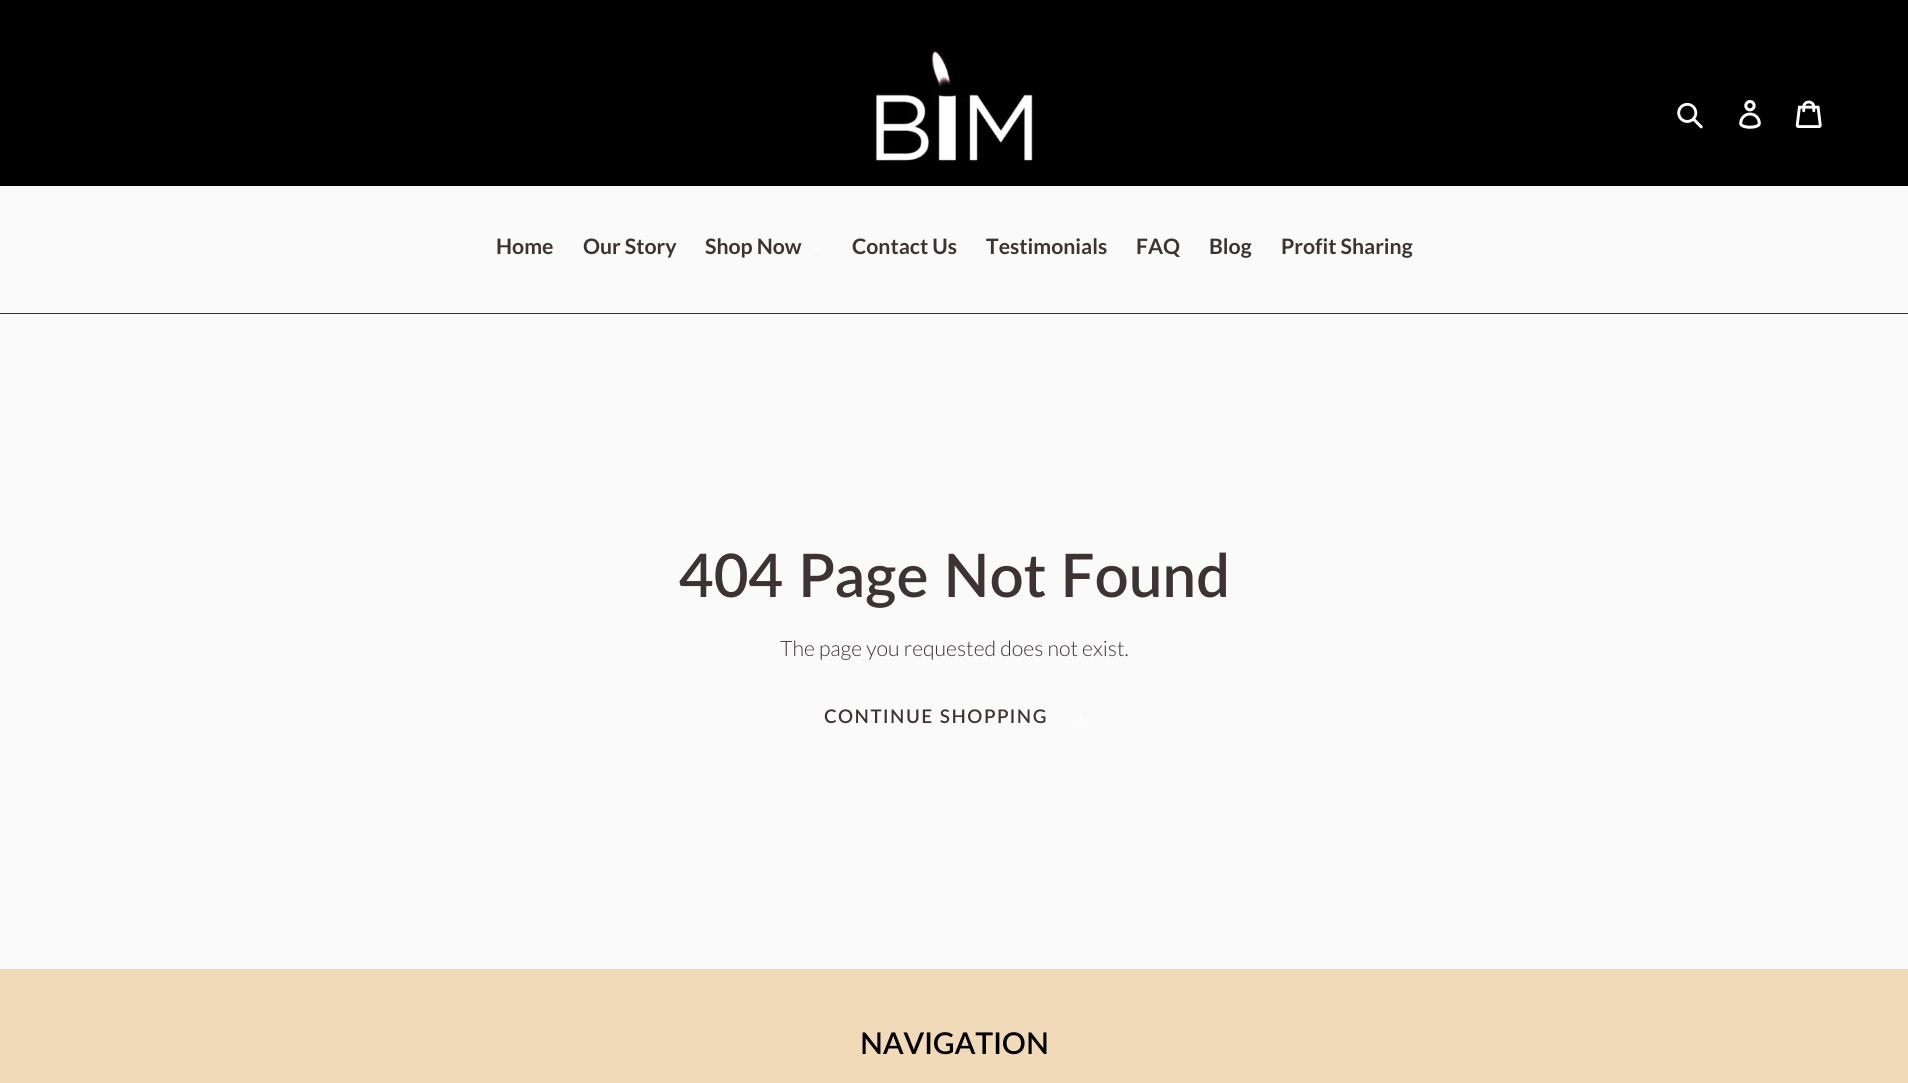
#include <cairo/cairo.h>
#include <math.h>
#include <stddef.h>


static void draw_spaced(cairo_t *cr, double x, double y, const char *s, double letter, double word) {
  cairo_move_to(cr, x, y);
  while (*s) {
    char ch[5] = {0};
    int n = 0;
    do ch[n++] = *s++; while ((*s & 0xC0) == 0x80);
    cairo_show_text(cr, ch);
    cairo_rel_move_to(cr, letter + word * (*ch == ' '), 0);
  }
}

static void draw_image(cairo_t *cr, const char *path, double x, double y, double w, double h) {
  cairo_surface_t *image = cairo_image_surface_create_from_png(path);
  cairo_save(cr);
  cairo_set_source_surface(cr, image, x, y);
  cairo_rectangle(cr, x, y, w, h);
  cairo_fill(cr);
  cairo_restore(cr);
  cairo_surface_destroy(image);
}

static void draw(cairo_t *cr) {
  cairo_set_source_rgb(cr, 250 / 255.0, 250 / 255.0, 250 / 255.0);
  cairo_paint(cr);
  cairo_set_source_rgb(cr, 0, 0, 0);
  cairo_rectangle(cr, 0, 0, 1908, 186);
  cairo_fill(cr);
  draw_image(cr, "images/1.png", 874, 47, 160, 115);
  draw_image(cr, "images/2.png", 1677, 102, 26, 27);
  draw_image(cr, "images/3.png", 1739, 100, 22, 29);
  draw_image(cr, "images/4.png", 1795, 100, 27, 28);
  cairo_set_source_rgb(cr, 61 / 255.0, 51 / 255.0, 51 / 255.0);
  cairo_rectangle(cr, 0, 313, 1908, 1);
  cairo_fill(cr);
  draw_image(cr, "images/5.png", 813, 246, 10, 6);
  draw_image(cr, "images/6.png", 1079, 715, 4, 7);
  cairo_set_source_rgb(cr, 241 / 255.0, 218 / 255.0, 184 / 255.0);
  cairo_rectangle(cr, 0, 969, 1908, 114);
  cairo_fill(cr);
  cairo_select_font_face(cr, "Lato", CAIRO_FONT_SLANT_NORMAL, CAIRO_FONT_WEIGHT_BOLD);
  cairo_set_font_size(cr, 21.25);
  cairo_set_source_rgb(cr, 61 / 255.0, 51 / 255.0, 51 / 255.0);
  cairo_move_to(cr, 496, 254);
  cairo_show_text(cr, "Home");
  cairo_move_to(cr, 583, 254);
  cairo_show_text(cr, "Our Story");
  cairo_move_to(cr, 705, 254);
  cairo_show_text(cr, "Shop Now");
  cairo_move_to(cr, 852, 254);
  cairo_show_text(cr, "Contact Us");
  cairo_move_to(cr, 986, 254);
  cairo_show_text(cr, "Testimonials");
  cairo_move_to(cr, 1136, 254);
  cairo_show_text(cr, "FAQ");
  cairo_move_to(cr, 1209, 254);
  cairo_show_text(cr, "Blog");
  cairo_move_to(cr, 1281, 254);
  cairo_show_text(cr, "Profit Sharing");
  cairo_select_font_face(cr, "Lato SemiBold", CAIRO_FONT_SLANT_NORMAL, CAIRO_FONT_WEIGHT_NORMAL);
  cairo_set_font_size(cr, 60);
  cairo_move_to(cr, 679, 597);
  cairo_show_text(cr, "404 Page Not Found");
  cairo_select_font_face(cr, "Lato Light", CAIRO_FONT_SLANT_NORMAL, CAIRO_FONT_WEIGHT_NORMAL);
  cairo_set_font_size(cr, 21.25);
  cairo_move_to(cr, 780, 656);
  cairo_show_text(cr, "The page you requested does not exist.");
  cairo_select_font_face(cr, "Lato SemiBold", CAIRO_FONT_SLANT_NORMAL, CAIRO_FONT_WEIGHT_NORMAL);
  cairo_set_font_size(cr, 18.75);
  draw_spaced(cr, 824, 723, "CONTINUE SHOPPING", 1.5, 0);
  cairo_set_font_size(cr, 30);
  cairo_set_source_rgb(cr, 0, 0, 0);
  cairo_move_to(cr, 860, 1054);
  cairo_show_text(cr, "NAVIGATION");
}

int main(void) {
  cairo_surface_t *surface = cairo_image_surface_create(CAIRO_FORMAT_RGB24, 1908, 1083);
  cairo_t *cr = cairo_create(surface);
  cairo_font_options_t *options = cairo_font_options_create();
  cairo_font_options_set_hint_metrics(options, CAIRO_HINT_METRICS_OFF);
  cairo_font_options_set_hint_style(options, CAIRO_HINT_STYLE_NONE);
  cairo_set_font_options(cr, options);
  cairo_set_miter_limit(cr, 4);
  draw(cr);
  cairo_surface_write_to_png(surface, "out.png");
  cairo_font_options_destroy(options);
  cairo_destroy(cr);
  cairo_surface_destroy(surface);
  return 0;
}
